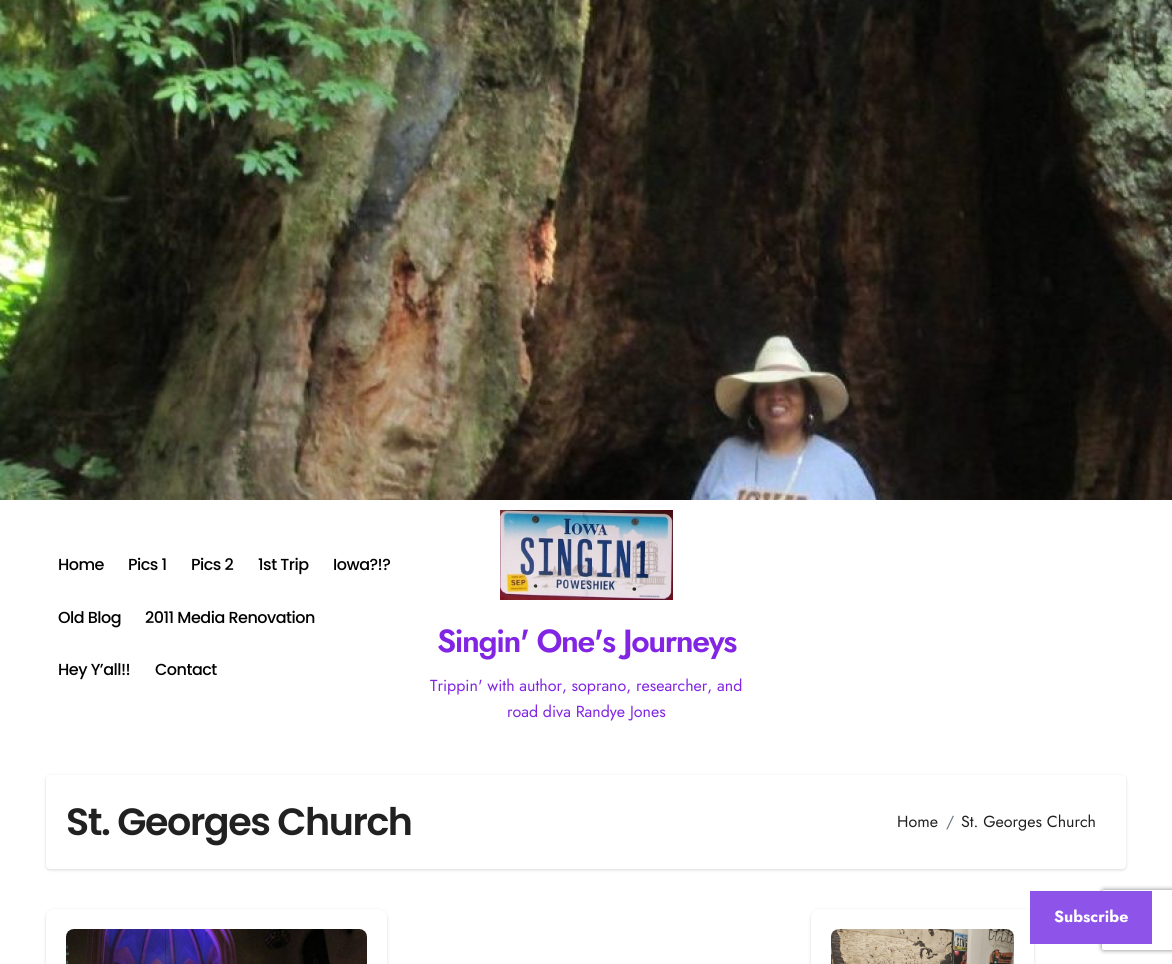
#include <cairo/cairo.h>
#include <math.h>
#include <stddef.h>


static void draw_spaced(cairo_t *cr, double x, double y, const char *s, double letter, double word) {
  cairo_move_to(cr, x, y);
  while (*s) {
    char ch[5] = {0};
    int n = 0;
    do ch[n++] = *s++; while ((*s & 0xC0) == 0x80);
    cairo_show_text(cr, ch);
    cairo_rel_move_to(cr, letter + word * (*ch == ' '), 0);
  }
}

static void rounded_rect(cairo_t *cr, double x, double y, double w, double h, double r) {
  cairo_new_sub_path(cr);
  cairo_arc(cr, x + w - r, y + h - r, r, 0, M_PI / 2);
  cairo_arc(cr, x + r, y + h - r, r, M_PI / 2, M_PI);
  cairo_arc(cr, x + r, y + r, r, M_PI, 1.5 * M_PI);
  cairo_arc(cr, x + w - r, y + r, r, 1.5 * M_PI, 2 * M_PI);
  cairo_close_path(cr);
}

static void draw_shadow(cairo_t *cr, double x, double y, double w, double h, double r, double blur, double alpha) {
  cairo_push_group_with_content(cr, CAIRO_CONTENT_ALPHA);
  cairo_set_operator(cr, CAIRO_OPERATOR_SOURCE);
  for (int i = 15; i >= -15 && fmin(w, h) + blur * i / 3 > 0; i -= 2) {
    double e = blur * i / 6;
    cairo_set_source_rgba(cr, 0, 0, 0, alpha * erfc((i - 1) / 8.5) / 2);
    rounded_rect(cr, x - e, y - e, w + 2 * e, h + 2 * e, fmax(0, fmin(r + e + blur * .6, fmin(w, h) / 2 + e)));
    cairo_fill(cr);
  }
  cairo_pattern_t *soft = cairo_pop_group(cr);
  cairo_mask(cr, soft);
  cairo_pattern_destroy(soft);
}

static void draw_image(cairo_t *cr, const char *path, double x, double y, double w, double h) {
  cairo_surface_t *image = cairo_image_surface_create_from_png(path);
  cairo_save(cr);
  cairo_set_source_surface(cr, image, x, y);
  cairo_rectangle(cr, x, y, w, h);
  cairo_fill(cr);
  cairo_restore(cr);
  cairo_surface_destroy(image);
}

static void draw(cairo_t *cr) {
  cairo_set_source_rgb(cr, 1, 1, 1);
  cairo_paint(cr);
  draw_image(cr, "images/1.png", 0, 0, 1172, 500);
  draw_image(cr, "images/2.png", 500, 510, 173, 90);
  cairo_set_source_rgb(cr, 0, 0, 0);
  draw_shadow(cr, 46, 776, 1080, 94, 4, 1.5, 0.15);
  cairo_set_source_rgb(cr, 1, 1, 1);
  rounded_rect(cr, 46, 775, 1080, 94, 4);
  cairo_fill(cr);
  cairo_set_source_rgb(cr, 0, 0, 0);
  draw_shadow(cr, 46, 910, 341, 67, 8, 1.5, 0.15);
  cairo_set_source_rgb(cr, 1, 1, 1);
  rounded_rect(cr, 46, 909, 341, 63, 8);
  cairo_fill(cr);
  draw_image(cr, "images/3.png", 66, 929, 301, 35);
  cairo_set_source_rgb(cr, 0, 0, 0);
  draw_shadow(cr, 811, 910, 223, 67, 8, 1.5, 0.15);
  cairo_set_source_rgb(cr, 1, 1, 1);
  rounded_rect(cr, 811, 909, 223, 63, 8);
  cairo_fill(cr);
  draw_image(cr, "images/4.png", 831, 929, 183, 35);
  cairo_save(cr);
  cairo_set_fill_rule(cr, CAIRO_FILL_RULE_EVEN_ODD);
  cairo_new_path(cr);
  cairo_move_to(cr, 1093, 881);
  cairo_line_to(cr, 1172, 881);
  cairo_line_to(cr, 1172, 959);
  cairo_line_to(cr, 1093, 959);
  cairo_close_path(cr);
  cairo_move_to(cr, 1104, 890);
  cairo_line_to(cr, 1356, 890);
  cairo_curve_to(cr, 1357, 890, 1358, 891, 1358, 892);
  cairo_line_to(cr, 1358, 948);
  cairo_curve_to(cr, 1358, 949, 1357, 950, 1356, 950);
  cairo_line_to(cr, 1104, 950);
  cairo_curve_to(cr, 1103, 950, 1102, 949, 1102, 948);
  cairo_line_to(cr, 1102, 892);
  cairo_curve_to(cr, 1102, 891, 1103, 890, 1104, 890);
  cairo_close_path(cr);
  cairo_clip(cr);
  cairo_set_source_rgb(cr, 128 / 255.0, 128 / 255.0, 128 / 255.0);
  draw_shadow(cr, 1102, 890, 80, 60, 2, 2.5, 1);
  cairo_restore(cr);
  cairo_set_source_rgb(cr, 142 / 255.0, 84 / 255.0, 233 / 255.0);
  cairo_rectangle(cr, 1030, 891, 122, 53);
  cairo_fill(cr);
  cairo_select_font_face(cr, "Poppins Medium", CAIRO_FONT_SLANT_NORMAL, CAIRO_FONT_WEIGHT_NORMAL);
  cairo_set_font_size(cr, 16);
  cairo_set_source_rgb(cr, 0, 0, 0);
  draw_spaced(cr, 58, 570, "Home", -0.5, 0);
  draw_spaced(cr, 128, 570, "Pics 1", -0.5, 0);
  draw_spaced(cr, 191, 570, "Pics 2", -0.5, 0);
  draw_spaced(cr, 258, 570, "1st Trip", -0.5, 0);
  draw_spaced(cr, 333, 570, "Iowa?!?", -0.5, 0);
  draw_spaced(cr, 58, 623, "Old Blog", -0.5, 0);
  draw_spaced(cr, 145, 623, "2011 Media Renovation", -0.5, 0);
  draw_spaced(cr, 58, 675, "Hey Y’all!!", -0.5, 0);
  draw_spaced(cr, 155, 675, "Contact", -0.5, 0);
  cairo_select_font_face(cr, "Jost SemiBold", CAIRO_FONT_SLANT_NORMAL, CAIRO_FONT_WEIGHT_NORMAL);
  cairo_set_font_size(cr, 32);
  cairo_set_source_rgb(cr, 130 / 255.0, 36 / 255.0, 227 / 255.0);
  draw_spaced(cr, 437, 652, "Singin' One's Journeys", -1.4, 0);
  cairo_select_font_face(cr, "Jost", CAIRO_FONT_SLANT_NORMAL, CAIRO_FONT_WEIGHT_NORMAL);
  cairo_set_font_size(cr, 16);
  cairo_move_to(cr, 430, 691);
  cairo_show_text(cr, "Trippin' with author, soprano, researcher, and");
  cairo_move_to(cr, 507, 717);
  cairo_show_text(cr, "road diva Randye Jones");
  cairo_select_font_face(cr, "Poppins SemiBold", CAIRO_FONT_SLANT_NORMAL, CAIRO_FONT_WEIGHT_NORMAL);
  cairo_set_font_size(cr, 38);
  cairo_set_source_rgb(cr, 33 / 255.0, 33 / 255.0, 33 / 255.0);
  draw_spaced(cr, 66, 835, "St. Georges Church", -1.4, 0);
  cairo_select_font_face(cr, "Jost", CAIRO_FONT_SLANT_NORMAL, CAIRO_FONT_WEIGHT_NORMAL);
  cairo_set_font_size(cr, 16);
  cairo_move_to(cr, 897, 827);
  cairo_show_text(cr, "Home");
  cairo_set_source_rgb(cr, 108 / 255.0, 117 / 255.0, 125 / 255.0);
  cairo_move_to(cr, 946, 827);
  cairo_show_text(cr, "/");
  cairo_set_source_rgb(cr, 33 / 255.0, 33 / 255.0, 33 / 255.0);
  cairo_move_to(cr, 961, 827);
  cairo_show_text(cr, "St. Georges Church");
  cairo_select_font_face(cr, "Jost", CAIRO_FONT_SLANT_NORMAL, CAIRO_FONT_WEIGHT_BOLD);
  cairo_set_source_rgb(cr, 1, 1, 1);
  cairo_move_to(cr, 1054, 922);
  cairo_show_text(cr, "Subscribe");
}

int main(void) {
  cairo_surface_t *surface = cairo_image_surface_create(CAIRO_FORMAT_RGB24, 1172, 964);
  cairo_t *cr = cairo_create(surface);
  cairo_font_options_t *options = cairo_font_options_create();
  cairo_font_options_set_hint_metrics(options, CAIRO_HINT_METRICS_OFF);
  cairo_font_options_set_hint_style(options, CAIRO_HINT_STYLE_NONE);
  cairo_set_font_options(cr, options);
  cairo_set_miter_limit(cr, 4);
  draw(cr);
  cairo_surface_write_to_png(surface, "out.png");
  cairo_font_options_destroy(options);
  cairo_destroy(cr);
  cairo_surface_destroy(surface);
  return 0;
}
